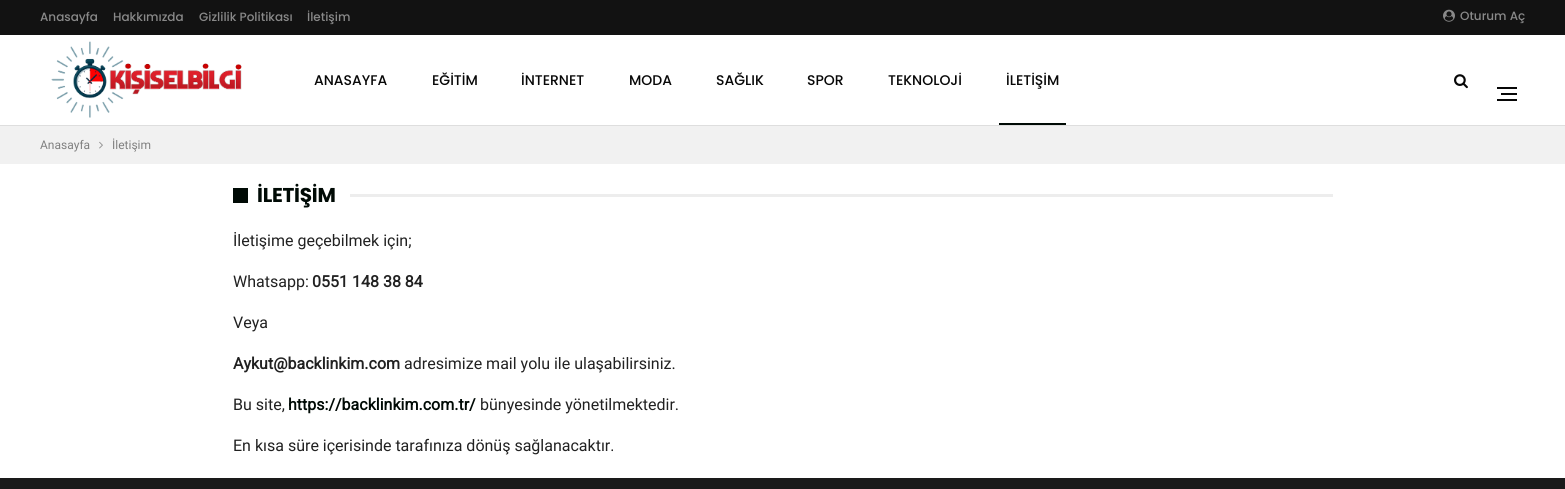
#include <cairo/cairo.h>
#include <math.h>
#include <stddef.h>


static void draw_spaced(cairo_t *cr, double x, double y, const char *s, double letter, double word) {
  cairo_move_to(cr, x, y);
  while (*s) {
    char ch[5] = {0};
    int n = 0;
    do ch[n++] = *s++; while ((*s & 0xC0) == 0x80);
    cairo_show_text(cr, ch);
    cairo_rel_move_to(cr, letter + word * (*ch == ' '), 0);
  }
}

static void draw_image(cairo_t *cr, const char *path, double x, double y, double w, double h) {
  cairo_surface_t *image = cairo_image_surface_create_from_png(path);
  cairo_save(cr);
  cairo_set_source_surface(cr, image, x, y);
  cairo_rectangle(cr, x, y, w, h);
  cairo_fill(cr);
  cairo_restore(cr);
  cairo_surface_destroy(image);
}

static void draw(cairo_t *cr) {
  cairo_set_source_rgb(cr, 1, 1, 1);
  cairo_paint(cr);
  cairo_set_source_rgb(cr, 222 / 255.0, 222 / 255.0, 222 / 255.0);
  cairo_rectangle(cr, 0, 125, 1565, 1);
  cairo_fill(cr);
  cairo_set_source_rgb(cr, 18 / 255.0, 18 / 255.0, 18 / 255.0);
  cairo_rectangle(cr, 0, 0, 1565, 35);
  cairo_fill(cr);
  draw_image(cr, "images/1.png", 1443, 9, 12, 13);
  draw_image(cr, "images/2.png", 51, 41, 191, 77);
  cairo_set_source_rgb(cr, 0, 10 / 255.0, 5 / 255.0);
  cairo_rectangle(cr, 999, 123, 67, 2);
  cairo_fill(cr);
  draw_image(cr, "images/3.png", 1454, 74, 14, 15);
  cairo_set_source_rgb(cr, 7 / 255.0, 7 / 255.0, 7 / 255.0);
  cairo_rectangle(cr, 1501, 93, 16, 2);
  cairo_fill(cr);
  cairo_rectangle(cr, 1497, 87, 20, 2);
  cairo_fill(cr);
  cairo_rectangle(cr, 1497, 99, 20, 2);
  cairo_fill(cr);
  cairo_set_source_rgb(cr, 241 / 255.0, 241 / 255.0, 241 / 255.0);
  cairo_rectangle(cr, 0, 126, 1565, 38);
  cairo_fill(cr);
  draw_image(cr, "images/4.png", 99, 141, 4, 8);
  cairo_set_source_rgb(cr, 0, 10 / 255.0, 5 / 255.0);
  cairo_rectangle(cr, 233, 188, 15, 15);
  cairo_fill(cr);
  cairo_set_source_rgb(cr, 237 / 255.0, 237 / 255.0, 237 / 255.0);
  cairo_rectangle(cr, 350, 194, 983, 3);
  cairo_fill(cr);
  cairo_set_source_rgb(cr, 26 / 255.0, 26 / 255.0, 26 / 255.0);
  cairo_rectangle(cr, 0, 478, 1565, 11);
  cairo_fill(cr);
  cairo_select_font_face(cr, "Poppins Medium", CAIRO_FONT_SLANT_NORMAL, CAIRO_FONT_WEIGHT_NORMAL);
  cairo_set_font_size(cr, 12);
  cairo_set_source_rgb(cr, 137 / 255.0, 137 / 255.0, 137 / 255.0);
  cairo_move_to(cr, 40, 21);
  cairo_show_text(cr, "Anasayfa");
  cairo_move_to(cr, 113, 21);
  cairo_show_text(cr, "Hakkımızda");
  cairo_move_to(cr, 199, 21);
  cairo_show_text(cr, "Gizlilik Politikası");
  cairo_move_to(cr, 307, 21);
  cairo_show_text(cr, "İletişim");
  cairo_move_to(cr, 1460, 20);
  cairo_show_text(cr, "Oturum Aç");
  cairo_set_font_size(cr, 14);
  cairo_set_source_rgb(cr, 7 / 255.0, 7 / 255.0, 7 / 255.0);
  cairo_move_to(cr, 314, 85);
  cairo_show_text(cr, "ANASAYFA");
  cairo_move_to(cr, 432, 85);
  cairo_show_text(cr, "EĞİTİM");
  cairo_move_to(cr, 521, 85);
  cairo_show_text(cr, "İNTERNET");
  cairo_move_to(cr, 629, 85);
  cairo_show_text(cr, "MODA");
  cairo_move_to(cr, 716, 85);
  cairo_show_text(cr, "SAĞLIK");
  cairo_move_to(cr, 807, 85);
  cairo_show_text(cr, "SPOR");
  cairo_move_to(cr, 888, 85);
  cairo_show_text(cr, "TEKNOLOJİ");
  cairo_move_to(cr, 1006, 85);
  cairo_show_text(cr, "İLETİŞİM");
  cairo_select_font_face(cr, "Roboto", CAIRO_FONT_SLANT_NORMAL, CAIRO_FONT_WEIGHT_NORMAL);
  cairo_set_font_size(cr, 12);
  cairo_set_source_rgb(cr, 128 / 255.0, 128 / 255.0, 128 / 255.0);
  cairo_move_to(cr, 40, 149);
  cairo_show_text(cr, "Anasayfa");
  cairo_move_to(cr, 112, 149);
  cairo_show_text(cr, "İletişim");
  cairo_select_font_face(cr, "Poppins", CAIRO_FONT_SLANT_NORMAL, CAIRO_FONT_WEIGHT_BOLD);
  cairo_set_font_size(cr, 20);
  cairo_set_source_rgb(cr, 0, 10 / 255.0, 5 / 255.0);
  draw_spaced(cr, 257, 202, "İLETİŞİM", -0.25, 0);
  cairo_select_font_face(cr, "Roboto", CAIRO_FONT_SLANT_NORMAL, CAIRO_FONT_WEIGHT_NORMAL);
  cairo_set_font_size(cr, 16);
  cairo_set_source_rgb(cr, 33 / 255.0, 33 / 255.0, 33 / 255.0);
  cairo_move_to(cr, 233, 246);
  cairo_show_text(cr, "İletişime geçebilmek için;");
  cairo_move_to(cr, 233, 287);
  cairo_show_text(cr, "Whatsapp:");
  cairo_select_font_face(cr, "Roboto", CAIRO_FONT_SLANT_NORMAL, CAIRO_FONT_WEIGHT_BOLD);
  cairo_move_to(cr, 312, 287);
  cairo_show_text(cr, "0551 148 38 84");
  cairo_select_font_face(cr, "Roboto", CAIRO_FONT_SLANT_NORMAL, CAIRO_FONT_WEIGHT_NORMAL);
  cairo_move_to(cr, 233, 328);
  cairo_show_text(cr, "Veya");
  cairo_select_font_face(cr, "Roboto", CAIRO_FONT_SLANT_NORMAL, CAIRO_FONT_WEIGHT_BOLD);
  cairo_move_to(cr, 233, 369);
  cairo_show_text(cr, "Aykut@backlinkim.com");
  cairo_select_font_face(cr, "Roboto", CAIRO_FONT_SLANT_NORMAL, CAIRO_FONT_WEIGHT_NORMAL);
  cairo_move_to(cr, 404, 369);
  cairo_show_text(cr, "adresimize mail yolu ile ulaşabilirsiniz.");
  cairo_move_to(cr, 233, 410);
  cairo_show_text(cr, "Bu site,");
  cairo_select_font_face(cr, "Roboto", CAIRO_FONT_SLANT_NORMAL, CAIRO_FONT_WEIGHT_BOLD);
  cairo_set_source_rgb(cr, 0, 10 / 255.0, 5 / 255.0);
  cairo_move_to(cr, 288, 410);
  cairo_show_text(cr, "https://backlinkim.com.tr/");
  cairo_select_font_face(cr, "Roboto", CAIRO_FONT_SLANT_NORMAL, CAIRO_FONT_WEIGHT_NORMAL);
  cairo_set_source_rgb(cr, 33 / 255.0, 33 / 255.0, 33 / 255.0);
  cairo_move_to(cr, 480, 410);
  cairo_show_text(cr, "bünyesinde yönetilmektedir.");
  cairo_move_to(cr, 233, 451);
  cairo_show_text(cr, "En kısa süre içerisinde tarafınıza dönüş sağlanacaktır.");
}

int main(void) {
  cairo_surface_t *surface = cairo_image_surface_create(CAIRO_FORMAT_RGB24, 1565, 489);
  cairo_t *cr = cairo_create(surface);
  cairo_font_options_t *options = cairo_font_options_create();
  cairo_font_options_set_hint_metrics(options, CAIRO_HINT_METRICS_OFF);
  cairo_font_options_set_hint_style(options, CAIRO_HINT_STYLE_NONE);
  cairo_set_font_options(cr, options);
  cairo_set_miter_limit(cr, 4);
  draw(cr);
  cairo_surface_write_to_png(surface, "out.png");
  cairo_font_options_destroy(options);
  cairo_destroy(cr);
  cairo_surface_destroy(surface);
  return 0;
}
